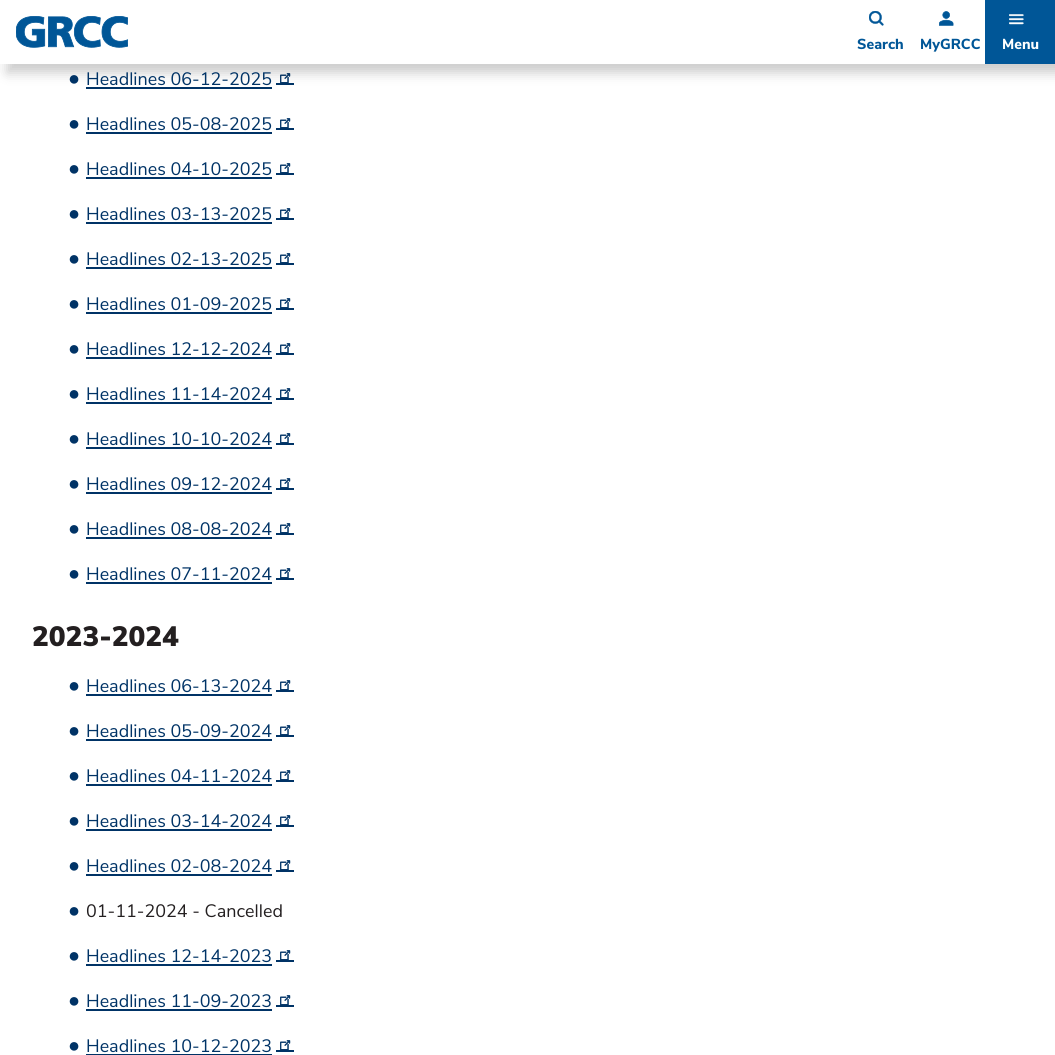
#include <cairo/cairo.h>
#include <math.h>
#include <stddef.h>


static void rounded_rect(cairo_t *cr, double x, double y, double w, double h, double r) {
  cairo_new_sub_path(cr);
  cairo_arc(cr, x + w - r, y + h - r, r, 0, M_PI / 2);
  cairo_arc(cr, x + r, y + h - r, r, M_PI / 2, M_PI);
  cairo_arc(cr, x + r, y + r, r, M_PI, 1.5 * M_PI);
  cairo_arc(cr, x + w - r, y + r, r, 1.5 * M_PI, 2 * M_PI);
  cairo_close_path(cr);
}

static void draw_shadow(cairo_t *cr, double x, double y, double w, double h, double r, double blur, double alpha) {
  cairo_push_group_with_content(cr, CAIRO_CONTENT_ALPHA);
  cairo_set_operator(cr, CAIRO_OPERATOR_SOURCE);
  for (int i = 15; i >= -15 && fmin(w, h) + blur * i / 3 > 0; i -= 2) {
    double e = blur * i / 6;
    cairo_set_source_rgba(cr, 0, 0, 0, alpha * erfc((i - 1) / 8.5) / 2);
    rounded_rect(cr, x - e, y - e, w + 2 * e, h + 2 * e, fmax(0, fmin(r + e + blur * .6, fmin(w, h) / 2 + e)));
    cairo_fill(cr);
  }
  cairo_pattern_t *soft = cairo_pop_group(cr);
  cairo_mask(cr, soft);
  cairo_pattern_destroy(soft);
}

static void draw_image(cairo_t *cr, const char *path, double x, double y, double w, double h) {
  cairo_surface_t *image = cairo_image_surface_create_from_png(path);
  cairo_save(cr);
  cairo_set_source_surface(cr, image, x, y);
  cairo_rectangle(cr, x, y, w, h);
  cairo_fill(cr);
  cairo_restore(cr);
  cairo_surface_destroy(image);
}

static void draw(cairo_t *cr) {
  cairo_set_source_rgb(cr, 1, 1, 1);
  cairo_paint(cr);
  cairo_set_source_rgb(cr, 0, 51 / 255.0, 102 / 255.0);
  cairo_rectangle(cr, 86, 87, 186, 2);
  cairo_fill(cr);
  cairo_rectangle(cr, 276, 83, 18, 2);
  cairo_fill(cr);
  draw_image(cr, "images/5.png", 280, 73, 11, 10);
  cairo_set_source_rgb(cr, 0, 0, 0);
  draw_shadow(cr, 7, 7, 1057, 66, 0, 6, 0.2);
  cairo_set_source_rgb(cr, 1, 1, 1);
  cairo_rectangle(cr, 0, 0, 985, 64);
  cairo_fill(cr);
  draw_image(cr, "images/1.png", 16, 16, 112, 32);
  draw_image(cr, "images/2.png", 869, 11, 15, 15);
  draw_image(cr, "images/3.png", 939, 11, 15, 15);
  cairo_set_source_rgb(cr, 0, 86 / 255.0, 151 / 255.0);
  cairo_rectangle(cr, 985, 0, 70, 64);
  cairo_fill(cr);
  draw_image(cr, "images/4.png", 1009, 14, 15, 11);
  cairo_set_source_rgb(cr, 0, 51 / 255.0, 102 / 255.0);
  cairo_rectangle(cr, 86, 132, 186, 2);
  cairo_fill(cr);
  cairo_rectangle(cr, 276, 128, 18, 2);
  cairo_fill(cr);
  draw_image(cr, "images/5.png", 280, 118, 11, 10);
  cairo_rectangle(cr, 86, 177, 186, 2);
  cairo_fill(cr);
  cairo_rectangle(cr, 276, 173, 18, 2);
  cairo_fill(cr);
  draw_image(cr, "images/5.png", 280, 163, 11, 10);
  cairo_rectangle(cr, 86, 222, 186, 2);
  cairo_fill(cr);
  cairo_rectangle(cr, 276, 218, 18, 2);
  cairo_fill(cr);
  draw_image(cr, "images/5.png", 280, 208, 11, 10);
  cairo_rectangle(cr, 86, 267, 186, 2);
  cairo_fill(cr);
  cairo_rectangle(cr, 276, 263, 18, 2);
  cairo_fill(cr);
  draw_image(cr, "images/5.png", 280, 253, 11, 10);
  cairo_rectangle(cr, 86, 312, 186, 2);
  cairo_fill(cr);
  cairo_rectangle(cr, 276, 308, 18, 2);
  cairo_fill(cr);
  draw_image(cr, "images/5.png", 280, 298, 11, 10);
  cairo_rectangle(cr, 86, 357, 186, 2);
  cairo_fill(cr);
  cairo_rectangle(cr, 276, 353, 18, 2);
  cairo_fill(cr);
  draw_image(cr, "images/5.png", 280, 343, 11, 10);
  cairo_rectangle(cr, 86, 402, 186, 2);
  cairo_fill(cr);
  cairo_rectangle(cr, 276, 398, 18, 2);
  cairo_fill(cr);
  draw_image(cr, "images/5.png", 280, 388, 11, 10);
  cairo_rectangle(cr, 86, 447, 186, 2);
  cairo_fill(cr);
  cairo_rectangle(cr, 276, 443, 18, 2);
  cairo_fill(cr);
  draw_image(cr, "images/5.png", 280, 433, 11, 10);
  cairo_rectangle(cr, 86, 492, 186, 2);
  cairo_fill(cr);
  cairo_rectangle(cr, 276, 488, 18, 2);
  cairo_fill(cr);
  draw_image(cr, "images/5.png", 280, 478, 11, 10);
  cairo_rectangle(cr, 86, 537, 186, 2);
  cairo_fill(cr);
  cairo_rectangle(cr, 276, 533, 18, 2);
  cairo_fill(cr);
  draw_image(cr, "images/5.png", 280, 523, 11, 10);
  cairo_rectangle(cr, 86, 582, 186, 2);
  cairo_fill(cr);
  cairo_rectangle(cr, 276, 578, 18, 2);
  cairo_fill(cr);
  draw_image(cr, "images/5.png", 280, 568, 11, 10);
  cairo_rectangle(cr, 86, 694, 186, 2);
  cairo_fill(cr);
  cairo_rectangle(cr, 276, 690, 18, 2);
  cairo_fill(cr);
  draw_image(cr, "images/5.png", 280, 680, 11, 10);
  cairo_rectangle(cr, 86, 739, 186, 2);
  cairo_fill(cr);
  cairo_rectangle(cr, 276, 735, 18, 2);
  cairo_fill(cr);
  draw_image(cr, "images/5.png", 280, 725, 11, 10);
  cairo_rectangle(cr, 86, 784, 186, 2);
  cairo_fill(cr);
  cairo_rectangle(cr, 276, 780, 18, 2);
  cairo_fill(cr);
  draw_image(cr, "images/5.png", 280, 770, 11, 10);
  cairo_rectangle(cr, 86, 829, 186, 2);
  cairo_fill(cr);
  cairo_rectangle(cr, 276, 825, 18, 2);
  cairo_fill(cr);
  draw_image(cr, "images/5.png", 280, 815, 11, 10);
  cairo_rectangle(cr, 86, 874, 186, 2);
  cairo_fill(cr);
  cairo_rectangle(cr, 276, 870, 18, 2);
  cairo_fill(cr);
  draw_image(cr, "images/5.png", 280, 860, 11, 10);
  cairo_rectangle(cr, 86, 964, 186, 2);
  cairo_fill(cr);
  cairo_rectangle(cr, 276, 960, 18, 2);
  cairo_fill(cr);
  draw_image(cr, "images/5.png", 280, 950, 11, 10);
  cairo_rectangle(cr, 86, 1009, 186, 2);
  cairo_fill(cr);
  cairo_rectangle(cr, 276, 1005, 18, 2);
  cairo_fill(cr);
  draw_image(cr, "images/5.png", 280, 995, 11, 10);
  cairo_rectangle(cr, 86, 1054, 186, 1);
  cairo_fill(cr);
  cairo_rectangle(cr, 276, 1050, 18, 2);
  cairo_fill(cr);
  draw_image(cr, "images/5.png", 280, 1040, 11, 10);
  cairo_select_font_face(cr, "Nunito Sans ExtraBold", CAIRO_FONT_SLANT_NORMAL, CAIRO_FONT_WEIGHT_NORMAL);
  cairo_set_font_size(cr, 14.5);
  cairo_set_source_rgb(cr, 0, 86 / 255.0, 151 / 255.0);
  cairo_move_to(cr, 857, 49);
  cairo_show_text(cr, "Search");
  cairo_move_to(cr, 920, 49);
  cairo_show_text(cr, "MyGRCC");
  cairo_set_source_rgb(cr, 1, 1, 1);
  cairo_move_to(cr, 1002, 49);
  cairo_show_text(cr, "Menu");
  cairo_select_font_face(cr, "Liberation Sans", CAIRO_FONT_SLANT_NORMAL, CAIRO_FONT_WEIGHT_BOLD);
  cairo_set_font_size(cr, 20);
  cairo_set_source_rgb(cr, 0, 51 / 255.0, 102 / 255.0);
  cairo_move_to(cr, 68, 85);
  cairo_show_text(cr, "●");
  cairo_select_font_face(cr, "Nunito Sans", CAIRO_FONT_SLANT_NORMAL, CAIRO_FONT_WEIGHT_NORMAL);
  cairo_set_font_size(cr, 18);
  cairo_move_to(cr, 86, 85);
  cairo_show_text(cr, "Headlines 06-12-2025");
  cairo_select_font_face(cr, "Liberation Sans", CAIRO_FONT_SLANT_NORMAL, CAIRO_FONT_WEIGHT_BOLD);
  cairo_set_font_size(cr, 20);
  cairo_move_to(cr, 68, 130);
  cairo_show_text(cr, "●");
  cairo_select_font_face(cr, "Nunito Sans", CAIRO_FONT_SLANT_NORMAL, CAIRO_FONT_WEIGHT_NORMAL);
  cairo_set_font_size(cr, 18);
  cairo_move_to(cr, 86, 130);
  cairo_show_text(cr, "Headlines 05-08-2025");
  cairo_select_font_face(cr, "Liberation Sans", CAIRO_FONT_SLANT_NORMAL, CAIRO_FONT_WEIGHT_BOLD);
  cairo_set_font_size(cr, 20);
  cairo_move_to(cr, 68, 175);
  cairo_show_text(cr, "●");
  cairo_select_font_face(cr, "Nunito Sans", CAIRO_FONT_SLANT_NORMAL, CAIRO_FONT_WEIGHT_NORMAL);
  cairo_set_font_size(cr, 18);
  cairo_move_to(cr, 86, 175);
  cairo_show_text(cr, "Headlines 04-10-2025");
  cairo_select_font_face(cr, "Liberation Sans", CAIRO_FONT_SLANT_NORMAL, CAIRO_FONT_WEIGHT_BOLD);
  cairo_set_font_size(cr, 20);
  cairo_move_to(cr, 68, 220);
  cairo_show_text(cr, "●");
  cairo_select_font_face(cr, "Nunito Sans", CAIRO_FONT_SLANT_NORMAL, CAIRO_FONT_WEIGHT_NORMAL);
  cairo_set_font_size(cr, 18);
  cairo_move_to(cr, 86, 220);
  cairo_show_text(cr, "Headlines 03-13-2025");
  cairo_select_font_face(cr, "Liberation Sans", CAIRO_FONT_SLANT_NORMAL, CAIRO_FONT_WEIGHT_BOLD);
  cairo_set_font_size(cr, 20);
  cairo_move_to(cr, 68, 265);
  cairo_show_text(cr, "●");
  cairo_select_font_face(cr, "Nunito Sans", CAIRO_FONT_SLANT_NORMAL, CAIRO_FONT_WEIGHT_NORMAL);
  cairo_set_font_size(cr, 18);
  cairo_move_to(cr, 86, 265);
  cairo_show_text(cr, "Headlines 02-13-2025");
  cairo_select_font_face(cr, "Liberation Sans", CAIRO_FONT_SLANT_NORMAL, CAIRO_FONT_WEIGHT_BOLD);
  cairo_set_font_size(cr, 20);
  cairo_move_to(cr, 68, 310);
  cairo_show_text(cr, "●");
  cairo_select_font_face(cr, "Nunito Sans", CAIRO_FONT_SLANT_NORMAL, CAIRO_FONT_WEIGHT_NORMAL);
  cairo_set_font_size(cr, 18);
  cairo_move_to(cr, 86, 310);
  cairo_show_text(cr, "Headlines 01-09-2025");
  cairo_select_font_face(cr, "Liberation Sans", CAIRO_FONT_SLANT_NORMAL, CAIRO_FONT_WEIGHT_BOLD);
  cairo_set_font_size(cr, 20);
  cairo_move_to(cr, 68, 355);
  cairo_show_text(cr, "●");
  cairo_select_font_face(cr, "Nunito Sans", CAIRO_FONT_SLANT_NORMAL, CAIRO_FONT_WEIGHT_NORMAL);
  cairo_set_font_size(cr, 18);
  cairo_move_to(cr, 86, 355);
  cairo_show_text(cr, "Headlines 12-12-2024");
  cairo_select_font_face(cr, "Liberation Sans", CAIRO_FONT_SLANT_NORMAL, CAIRO_FONT_WEIGHT_BOLD);
  cairo_set_font_size(cr, 20);
  cairo_move_to(cr, 68, 400);
  cairo_show_text(cr, "●");
  cairo_select_font_face(cr, "Nunito Sans", CAIRO_FONT_SLANT_NORMAL, CAIRO_FONT_WEIGHT_NORMAL);
  cairo_set_font_size(cr, 18);
  cairo_move_to(cr, 86, 400);
  cairo_show_text(cr, "Headlines 11-14-2024");
  cairo_select_font_face(cr, "Liberation Sans", CAIRO_FONT_SLANT_NORMAL, CAIRO_FONT_WEIGHT_BOLD);
  cairo_set_font_size(cr, 20);
  cairo_move_to(cr, 68, 445);
  cairo_show_text(cr, "●");
  cairo_select_font_face(cr, "Nunito Sans", CAIRO_FONT_SLANT_NORMAL, CAIRO_FONT_WEIGHT_NORMAL);
  cairo_set_font_size(cr, 18);
  cairo_move_to(cr, 86, 445);
  cairo_show_text(cr, "Headlines 10-10-2024");
  cairo_select_font_face(cr, "Liberation Sans", CAIRO_FONT_SLANT_NORMAL, CAIRO_FONT_WEIGHT_BOLD);
  cairo_set_font_size(cr, 20);
  cairo_move_to(cr, 68, 490);
  cairo_show_text(cr, "●");
  cairo_select_font_face(cr, "Nunito Sans", CAIRO_FONT_SLANT_NORMAL, CAIRO_FONT_WEIGHT_NORMAL);
  cairo_set_font_size(cr, 18);
  cairo_move_to(cr, 86, 490);
  cairo_show_text(cr, "Headlines 09-12-2024");
  cairo_select_font_face(cr, "Liberation Sans", CAIRO_FONT_SLANT_NORMAL, CAIRO_FONT_WEIGHT_BOLD);
  cairo_set_font_size(cr, 20);
  cairo_move_to(cr, 68, 535);
  cairo_show_text(cr, "●");
  cairo_select_font_face(cr, "Nunito Sans", CAIRO_FONT_SLANT_NORMAL, CAIRO_FONT_WEIGHT_NORMAL);
  cairo_set_font_size(cr, 18);
  cairo_move_to(cr, 86, 535);
  cairo_show_text(cr, "Headlines 08-08-2024");
  cairo_select_font_face(cr, "Liberation Sans", CAIRO_FONT_SLANT_NORMAL, CAIRO_FONT_WEIGHT_BOLD);
  cairo_set_font_size(cr, 20);
  cairo_move_to(cr, 68, 580);
  cairo_show_text(cr, "●");
  cairo_select_font_face(cr, "Nunito Sans", CAIRO_FONT_SLANT_NORMAL, CAIRO_FONT_WEIGHT_NORMAL);
  cairo_set_font_size(cr, 18);
  cairo_move_to(cr, 86, 580);
  cairo_show_text(cr, "Headlines 07-11-2024");
  cairo_select_font_face(cr, "Nunito Sans Black", CAIRO_FONT_SLANT_NORMAL, CAIRO_FONT_WEIGHT_NORMAL);
  cairo_set_font_size(cr, 28);
  cairo_set_source_rgb(cr, 35 / 255.0, 31 / 255.0, 32 / 255.0);
  cairo_move_to(cr, 32, 646);
  cairo_show_text(cr, "2023-2024");
  cairo_select_font_face(cr, "Liberation Sans", CAIRO_FONT_SLANT_NORMAL, CAIRO_FONT_WEIGHT_BOLD);
  cairo_set_font_size(cr, 20);
  cairo_set_source_rgb(cr, 0, 51 / 255.0, 102 / 255.0);
  cairo_move_to(cr, 68, 692);
  cairo_show_text(cr, "●");
  cairo_select_font_face(cr, "Nunito Sans", CAIRO_FONT_SLANT_NORMAL, CAIRO_FONT_WEIGHT_NORMAL);
  cairo_set_font_size(cr, 18);
  cairo_move_to(cr, 86, 692);
  cairo_show_text(cr, "Headlines 06-13-2024");
  cairo_select_font_face(cr, "Liberation Sans", CAIRO_FONT_SLANT_NORMAL, CAIRO_FONT_WEIGHT_BOLD);
  cairo_set_font_size(cr, 20);
  cairo_move_to(cr, 68, 737);
  cairo_show_text(cr, "●");
  cairo_select_font_face(cr, "Nunito Sans", CAIRO_FONT_SLANT_NORMAL, CAIRO_FONT_WEIGHT_NORMAL);
  cairo_set_font_size(cr, 18);
  cairo_move_to(cr, 86, 737);
  cairo_show_text(cr, "Headlines 05-09-2024");
  cairo_select_font_face(cr, "Liberation Sans", CAIRO_FONT_SLANT_NORMAL, CAIRO_FONT_WEIGHT_BOLD);
  cairo_set_font_size(cr, 20);
  cairo_move_to(cr, 68, 782);
  cairo_show_text(cr, "●");
  cairo_select_font_face(cr, "Nunito Sans", CAIRO_FONT_SLANT_NORMAL, CAIRO_FONT_WEIGHT_NORMAL);
  cairo_set_font_size(cr, 18);
  cairo_move_to(cr, 86, 782);
  cairo_show_text(cr, "Headlines 04-11-2024");
  cairo_select_font_face(cr, "Liberation Sans", CAIRO_FONT_SLANT_NORMAL, CAIRO_FONT_WEIGHT_BOLD);
  cairo_set_font_size(cr, 20);
  cairo_move_to(cr, 68, 827);
  cairo_show_text(cr, "●");
  cairo_select_font_face(cr, "Nunito Sans", CAIRO_FONT_SLANT_NORMAL, CAIRO_FONT_WEIGHT_NORMAL);
  cairo_set_font_size(cr, 18);
  cairo_move_to(cr, 86, 827);
  cairo_show_text(cr, "Headlines 03-14-2024");
  cairo_select_font_face(cr, "Liberation Sans", CAIRO_FONT_SLANT_NORMAL, CAIRO_FONT_WEIGHT_BOLD);
  cairo_set_font_size(cr, 20);
  cairo_move_to(cr, 68, 872);
  cairo_show_text(cr, "●");
  cairo_select_font_face(cr, "Nunito Sans", CAIRO_FONT_SLANT_NORMAL, CAIRO_FONT_WEIGHT_NORMAL);
  cairo_set_font_size(cr, 18);
  cairo_move_to(cr, 86, 872);
  cairo_show_text(cr, "Headlines 02-08-2024");
  cairo_select_font_face(cr, "Liberation Sans", CAIRO_FONT_SLANT_NORMAL, CAIRO_FONT_WEIGHT_BOLD);
  cairo_set_font_size(cr, 20);
  cairo_move_to(cr, 68, 917);
  cairo_show_text(cr, "●");
  cairo_select_font_face(cr, "Nunito Sans", CAIRO_FONT_SLANT_NORMAL, CAIRO_FONT_WEIGHT_NORMAL);
  cairo_set_font_size(cr, 18);
  cairo_set_source_rgb(cr, 35 / 255.0, 31 / 255.0, 32 / 255.0);
  cairo_move_to(cr, 86, 917);
  cairo_show_text(cr, "01-11-2024 - Cancelled");
  cairo_select_font_face(cr, "Liberation Sans", CAIRO_FONT_SLANT_NORMAL, CAIRO_FONT_WEIGHT_BOLD);
  cairo_set_font_size(cr, 20);
  cairo_set_source_rgb(cr, 0, 51 / 255.0, 102 / 255.0);
  cairo_move_to(cr, 68, 962);
  cairo_show_text(cr, "●");
  cairo_select_font_face(cr, "Nunito Sans", CAIRO_FONT_SLANT_NORMAL, CAIRO_FONT_WEIGHT_NORMAL);
  cairo_set_font_size(cr, 18);
  cairo_move_to(cr, 86, 962);
  cairo_show_text(cr, "Headlines 12-14-2023");
  cairo_select_font_face(cr, "Liberation Sans", CAIRO_FONT_SLANT_NORMAL, CAIRO_FONT_WEIGHT_BOLD);
  cairo_set_font_size(cr, 20);
  cairo_move_to(cr, 68, 1007);
  cairo_show_text(cr, "●");
  cairo_select_font_face(cr, "Nunito Sans", CAIRO_FONT_SLANT_NORMAL, CAIRO_FONT_WEIGHT_NORMAL);
  cairo_set_font_size(cr, 18);
  cairo_move_to(cr, 86, 1007);
  cairo_show_text(cr, "Headlines 11-09-2023");
  cairo_select_font_face(cr, "Liberation Sans", CAIRO_FONT_SLANT_NORMAL, CAIRO_FONT_WEIGHT_BOLD);
  cairo_set_font_size(cr, 20);
  cairo_move_to(cr, 68, 1052);
  cairo_show_text(cr, "●");
  cairo_select_font_face(cr, "Nunito Sans", CAIRO_FONT_SLANT_NORMAL, CAIRO_FONT_WEIGHT_NORMAL);
  cairo_set_font_size(cr, 18);
  cairo_move_to(cr, 86, 1052);
  cairo_show_text(cr, "Headlines 10-12-2023");
}

int main(void) {
  cairo_surface_t *surface = cairo_image_surface_create(CAIRO_FORMAT_RGB24, 1055, 1055);
  cairo_t *cr = cairo_create(surface);
  cairo_font_options_t *options = cairo_font_options_create();
  cairo_font_options_set_hint_metrics(options, CAIRO_HINT_METRICS_OFF);
  cairo_font_options_set_hint_style(options, CAIRO_HINT_STYLE_NONE);
  cairo_set_font_options(cr, options);
  cairo_set_miter_limit(cr, 4);
  draw(cr);
  cairo_surface_write_to_png(surface, "out.png");
  cairo_font_options_destroy(options);
  cairo_destroy(cr);
  cairo_surface_destroy(surface);
  return 0;
}
